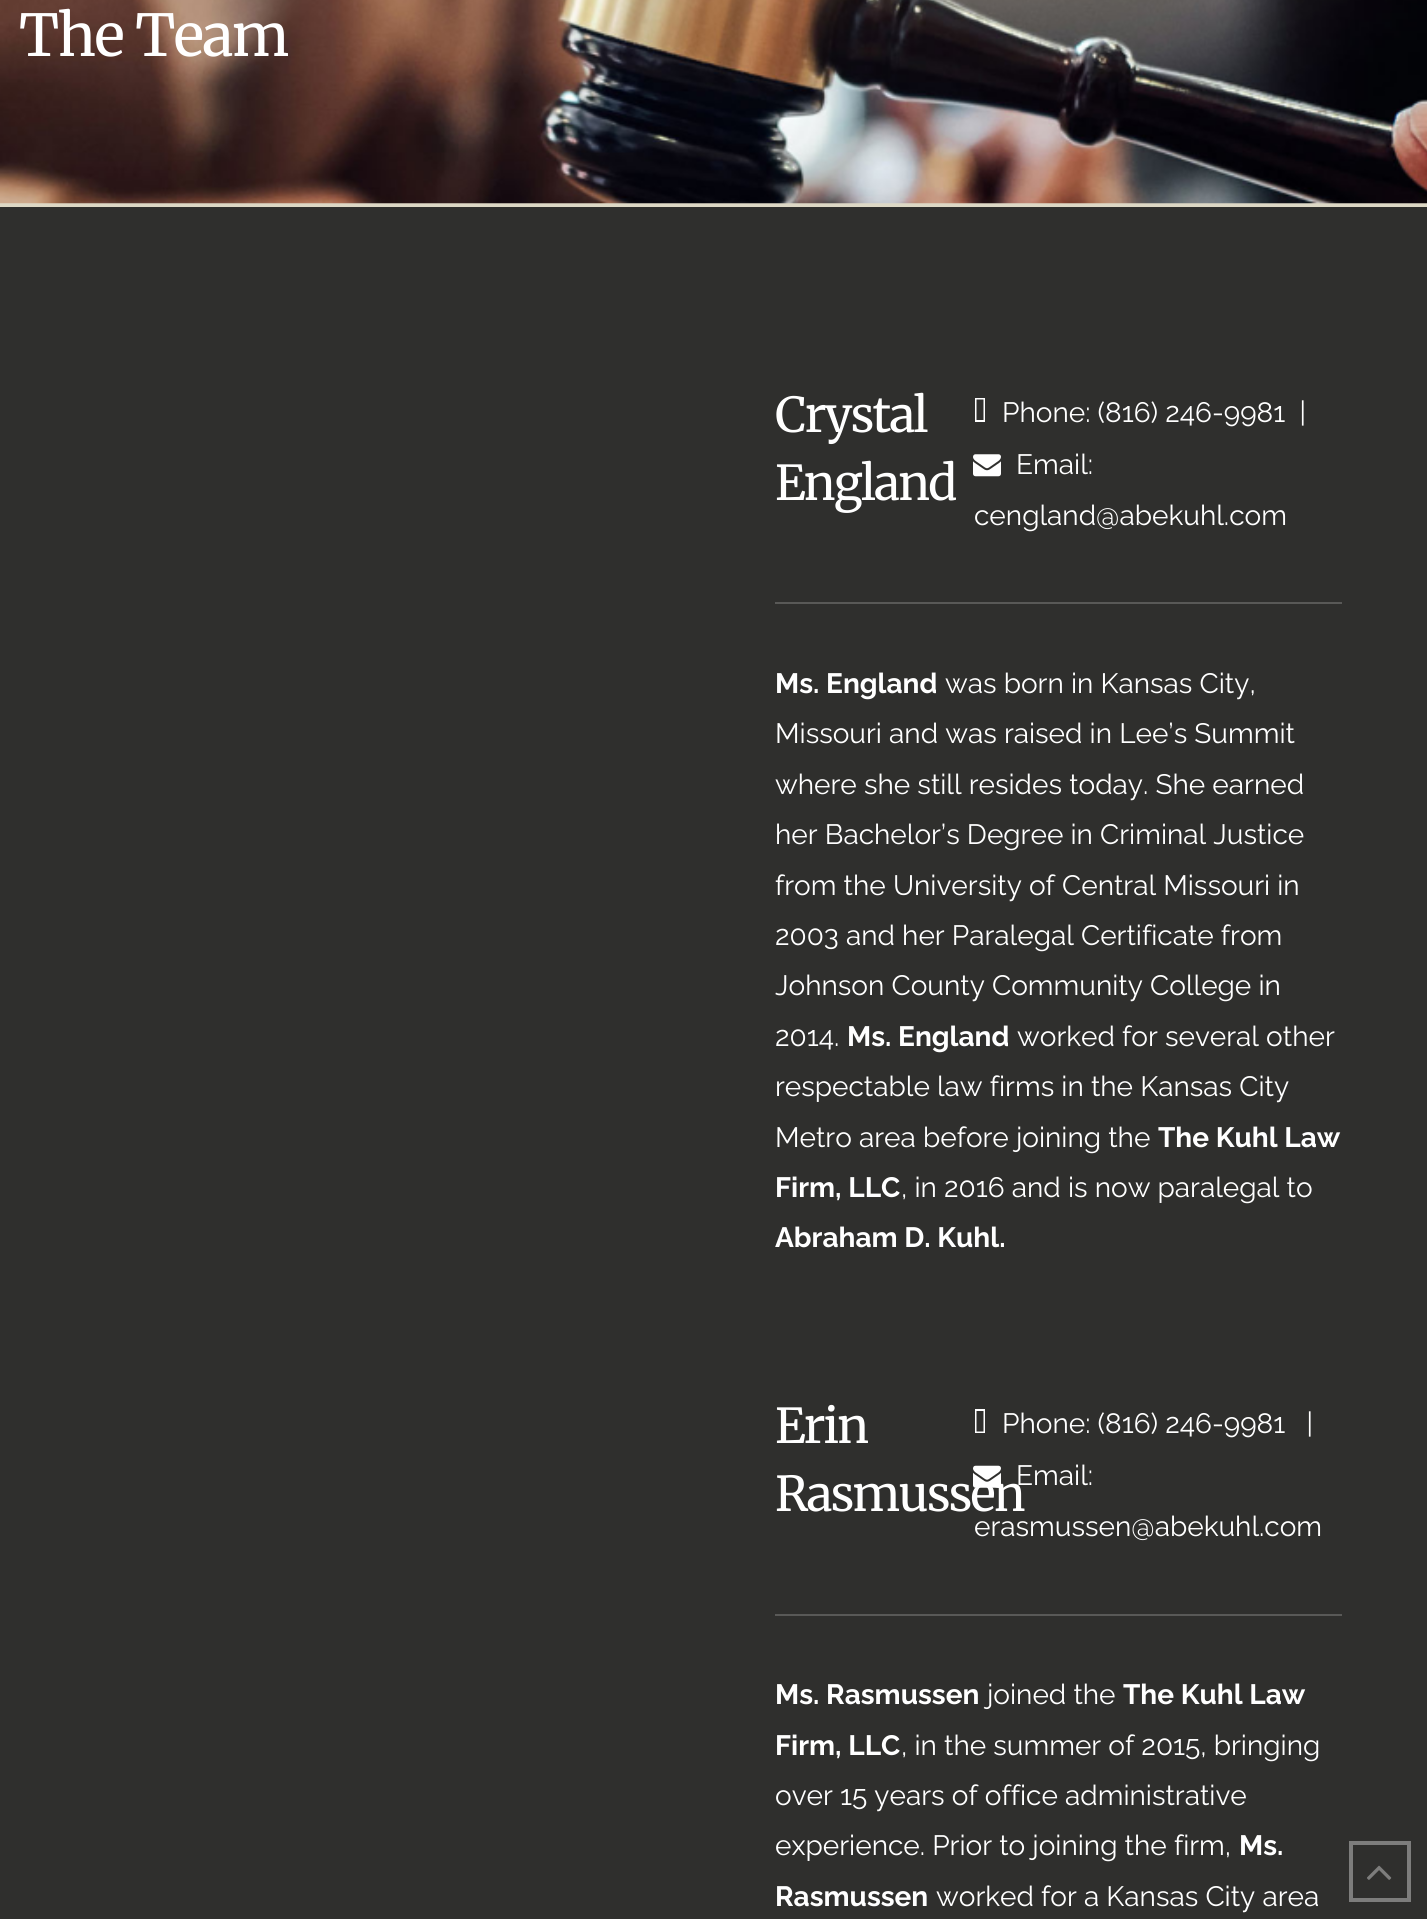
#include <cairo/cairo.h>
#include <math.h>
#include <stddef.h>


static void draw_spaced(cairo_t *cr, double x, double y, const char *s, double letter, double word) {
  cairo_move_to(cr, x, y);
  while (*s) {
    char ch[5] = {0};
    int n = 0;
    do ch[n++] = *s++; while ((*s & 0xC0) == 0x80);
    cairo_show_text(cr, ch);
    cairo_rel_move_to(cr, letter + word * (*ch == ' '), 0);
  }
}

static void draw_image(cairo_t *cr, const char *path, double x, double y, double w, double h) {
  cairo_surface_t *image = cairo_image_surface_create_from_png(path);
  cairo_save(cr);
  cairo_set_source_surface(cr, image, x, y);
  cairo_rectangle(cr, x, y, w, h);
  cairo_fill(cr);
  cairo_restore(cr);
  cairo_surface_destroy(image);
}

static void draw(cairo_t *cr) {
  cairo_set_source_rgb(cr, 221 / 255.0, 216 / 255.0, 197 / 255.0);
  cairo_paint(cr);
  draw_image(cr, "images/1.png", 0, 0, 1427, 204);
  cairo_set_source_rgb(cr, 47 / 255.0, 47 / 255.0, 45 / 255.0);
  cairo_rectangle(cr, 0, 207, 1427, 1712);
  cairo_fill(cr);
  cairo_set_source_rgb(cr, 1, 1, 1);
  cairo_new_path(cr);
  cairo_move_to(cr, 976.5, 420);
  cairo_line_to(cr, 976.5, 399.5);
  cairo_line_to(cr, 983.5, 399.5);
  cairo_line_to(cr, 983.5, 420);
  cairo_close_path(cr);
  cairo_move_to(cr, 975, 422);
  cairo_line_to(cr, 985, 422);
  cairo_line_to(cr, 985, 398);
  cairo_line_to(cr, 975, 398);
  cairo_close_path(cr);
  cairo_fill(cr);
  draw_image(cr, "images/2.png", 973, 454, 28, 23);
  cairo_set_source_rgb(cr, 89 / 255.0, 89 / 255.0, 87 / 255.0);
  cairo_rectangle(cr, 775, 602, 567, 2);
  cairo_fill(cr);
  cairo_set_source_rgb(cr, 1, 1, 1);
  cairo_new_path(cr);
  cairo_move_to(cr, 976.5, 1431.5);
  cairo_line_to(cr, 976.5, 1411);
  cairo_line_to(cr, 983.5, 1411);
  cairo_line_to(cr, 983.5, 1431.5);
  cairo_close_path(cr);
  cairo_move_to(cr, 975, 1433);
  cairo_line_to(cr, 985, 1433);
  cairo_line_to(cr, 985, 1409);
  cairo_line_to(cr, 975, 1409);
  cairo_close_path(cr);
  cairo_fill(cr);
  cairo_set_source_rgb(cr, 89 / 255.0, 89 / 255.0, 87 / 255.0);
  cairo_rectangle(cr, 775, 1614, 567, 2);
  cairo_fill(cr);
  cairo_rectangle(cr, 1351, 1843, 58, 57);
  cairo_set_source_rgb(cr, 125 / 255.0, 125 / 255.0, 124 / 255.0);
  cairo_set_line_width(cr, 4);
  cairo_stroke(cr);
  draw_image(cr, "images/4.png", 1367, 1865, 25, 15);
  cairo_select_font_face(cr, "Merriweather Light", CAIRO_FONT_SLANT_NORMAL, CAIRO_FONT_WEIGHT_NORMAL);
  cairo_set_font_size(cr, 57.75);
  cairo_set_source_rgb(cr, 1, 1, 1);
  draw_spaced(cr, 19, 56, "The Team", -1.5, 0);
  cairo_set_font_size(cr, 48);
  draw_spaced(cr, 775, 432, "Crystal", -1.75, 0);
  draw_spaced(cr, 775, 500, "England", -1.75, 0);
  cairo_select_font_face(cr, "Raleway", CAIRO_FONT_SLANT_NORMAL, CAIRO_FONT_WEIGHT_NORMAL);
  cairo_set_font_size(cr, 28);
  cairo_move_to(cr, 1002, 422);
  cairo_show_text(cr, "Phone: (816) 246-9981  |");
  cairo_move_to(cr, 1016, 474);
  cairo_show_text(cr, "Email:");
  cairo_move_to(cr, 974, 525);
  cairo_show_text(cr, "cengland@abekuhl.com");
  cairo_select_font_face(cr, "Raleway", CAIRO_FONT_SLANT_NORMAL, CAIRO_FONT_WEIGHT_BOLD);
  cairo_move_to(cr, 775, 693);
  cairo_show_text(cr, "Ms. England");
  cairo_select_font_face(cr, "Raleway", CAIRO_FONT_SLANT_NORMAL, CAIRO_FONT_WEIGHT_NORMAL);
  cairo_move_to(cr, 945, 693);
  cairo_show_text(cr, "was born in Kansas City,");
  cairo_move_to(cr, 775, 743);
  cairo_show_text(cr, "Missouri and was raised in Lee’s Summit");
  cairo_move_to(cr, 775, 794);
  cairo_show_text(cr, "where she still resides today. She earned");
  cairo_move_to(cr, 775, 844);
  cairo_show_text(cr, "her Bachelor’s Degree in Criminal Justice");
  cairo_move_to(cr, 775, 895);
  cairo_show_text(cr, "from the University of Central Missouri in");
  cairo_move_to(cr, 775, 945);
  cairo_show_text(cr, "2003 and her Paralegal Certificate from");
  cairo_move_to(cr, 775, 995);
  cairo_show_text(cr, "Johnson County Community College in");
  cairo_move_to(cr, 775, 1046);
  cairo_show_text(cr, "2014.");
  cairo_select_font_face(cr, "Raleway", CAIRO_FONT_SLANT_NORMAL, CAIRO_FONT_WEIGHT_BOLD);
  cairo_move_to(cr, 847, 1046);
  cairo_show_text(cr, "Ms. England");
  cairo_select_font_face(cr, "Raleway", CAIRO_FONT_SLANT_NORMAL, CAIRO_FONT_WEIGHT_NORMAL);
  cairo_move_to(cr, 1017, 1046);
  cairo_show_text(cr, "worked for several other");
  cairo_move_to(cr, 775, 1096);
  cairo_show_text(cr, "respectable law firms in the Kansas City");
  cairo_move_to(cr, 775, 1147);
  cairo_show_text(cr, "Metro area before joining the");
  cairo_select_font_face(cr, "Raleway", CAIRO_FONT_SLANT_NORMAL, CAIRO_FONT_WEIGHT_BOLD);
  cairo_move_to(cr, 1158, 1147);
  cairo_show_text(cr, "The Kuhl Law");
  cairo_move_to(cr, 775, 1197);
  cairo_show_text(cr, "Firm, LLC");
  cairo_select_font_face(cr, "Raleway", CAIRO_FONT_SLANT_NORMAL, CAIRO_FONT_WEIGHT_NORMAL);
  cairo_move_to(cr, 901, 1197);
  cairo_show_text(cr, ", in 2016 and is now paralegal to");
  cairo_select_font_face(cr, "Raleway", CAIRO_FONT_SLANT_NORMAL, CAIRO_FONT_WEIGHT_BOLD);
  cairo_move_to(cr, 775, 1247);
  cairo_show_text(cr, "Abraham D. Kuhl.");
  cairo_select_font_face(cr, "Merriweather Light", CAIRO_FONT_SLANT_NORMAL, CAIRO_FONT_WEIGHT_NORMAL);
  cairo_set_font_size(cr, 48);
  draw_spaced(cr, 775, 1443, "Erin", -1.75, 0);
  draw_spaced(cr, 775, 1511, "Rasmussen", -1.75, 0);
  cairo_select_font_face(cr, "Raleway", CAIRO_FONT_SLANT_NORMAL, CAIRO_FONT_WEIGHT_NORMAL);
  cairo_set_font_size(cr, 28);
  cairo_move_to(cr, 1002, 1433);
  cairo_show_text(cr, "Phone: (816) 246-9981   |");
  draw_image(cr, "images/3.png", 973, 1465, 28, 23);
  cairo_move_to(cr, 1016, 1485);
  cairo_show_text(cr, "Email:");
  cairo_move_to(cr, 974, 1536);
  cairo_show_text(cr, "erasmussen@abekuhl.com");
  cairo_select_font_face(cr, "Raleway", CAIRO_FONT_SLANT_NORMAL, CAIRO_FONT_WEIGHT_BOLD);
  cairo_move_to(cr, 775, 1704);
  cairo_show_text(cr, "Ms. Rasmussen");
  cairo_select_font_face(cr, "Raleway", CAIRO_FONT_SLANT_NORMAL, CAIRO_FONT_WEIGHT_NORMAL);
  cairo_move_to(cr, 987, 1704);
  cairo_show_text(cr, "joined the");
  cairo_select_font_face(cr, "Raleway", CAIRO_FONT_SLANT_NORMAL, CAIRO_FONT_WEIGHT_BOLD);
  cairo_move_to(cr, 1123, 1704);
  cairo_show_text(cr, "The Kuhl Law");
  cairo_move_to(cr, 775, 1755);
  cairo_show_text(cr, "Firm, LLC");
  cairo_select_font_face(cr, "Raleway", CAIRO_FONT_SLANT_NORMAL, CAIRO_FONT_WEIGHT_NORMAL);
  cairo_move_to(cr, 901, 1755);
  cairo_show_text(cr, ", in the summer of 2015, bringing");
  cairo_move_to(cr, 775, 1805);
  cairo_show_text(cr, "over 15 years of office administrative");
  cairo_move_to(cr, 775, 1855);
  cairo_show_text(cr, "experience. Prior to joining the firm,");
  cairo_select_font_face(cr, "Raleway", CAIRO_FONT_SLANT_NORMAL, CAIRO_FONT_WEIGHT_BOLD);
  cairo_move_to(cr, 1239, 1855);
  cairo_show_text(cr, "Ms.");
  cairo_move_to(cr, 775, 1906);
  cairo_show_text(cr, "Rasmussen");
  cairo_select_font_face(cr, "Raleway", CAIRO_FONT_SLANT_NORMAL, CAIRO_FONT_WEIGHT_NORMAL);
  cairo_move_to(cr, 936, 1906);
  cairo_show_text(cr, "worked for a Kansas City area");
}

int main(void) {
  cairo_surface_t *surface = cairo_image_surface_create(CAIRO_FORMAT_RGB24, 1427, 1919);
  cairo_t *cr = cairo_create(surface);
  cairo_font_options_t *options = cairo_font_options_create();
  cairo_font_options_set_hint_metrics(options, CAIRO_HINT_METRICS_OFF);
  cairo_font_options_set_hint_style(options, CAIRO_HINT_STYLE_NONE);
  cairo_set_font_options(cr, options);
  cairo_set_miter_limit(cr, 4);
  draw(cr);
  cairo_surface_write_to_png(surface, "out.png");
  cairo_font_options_destroy(options);
  cairo_destroy(cr);
  cairo_surface_destroy(surface);
  return 0;
}
